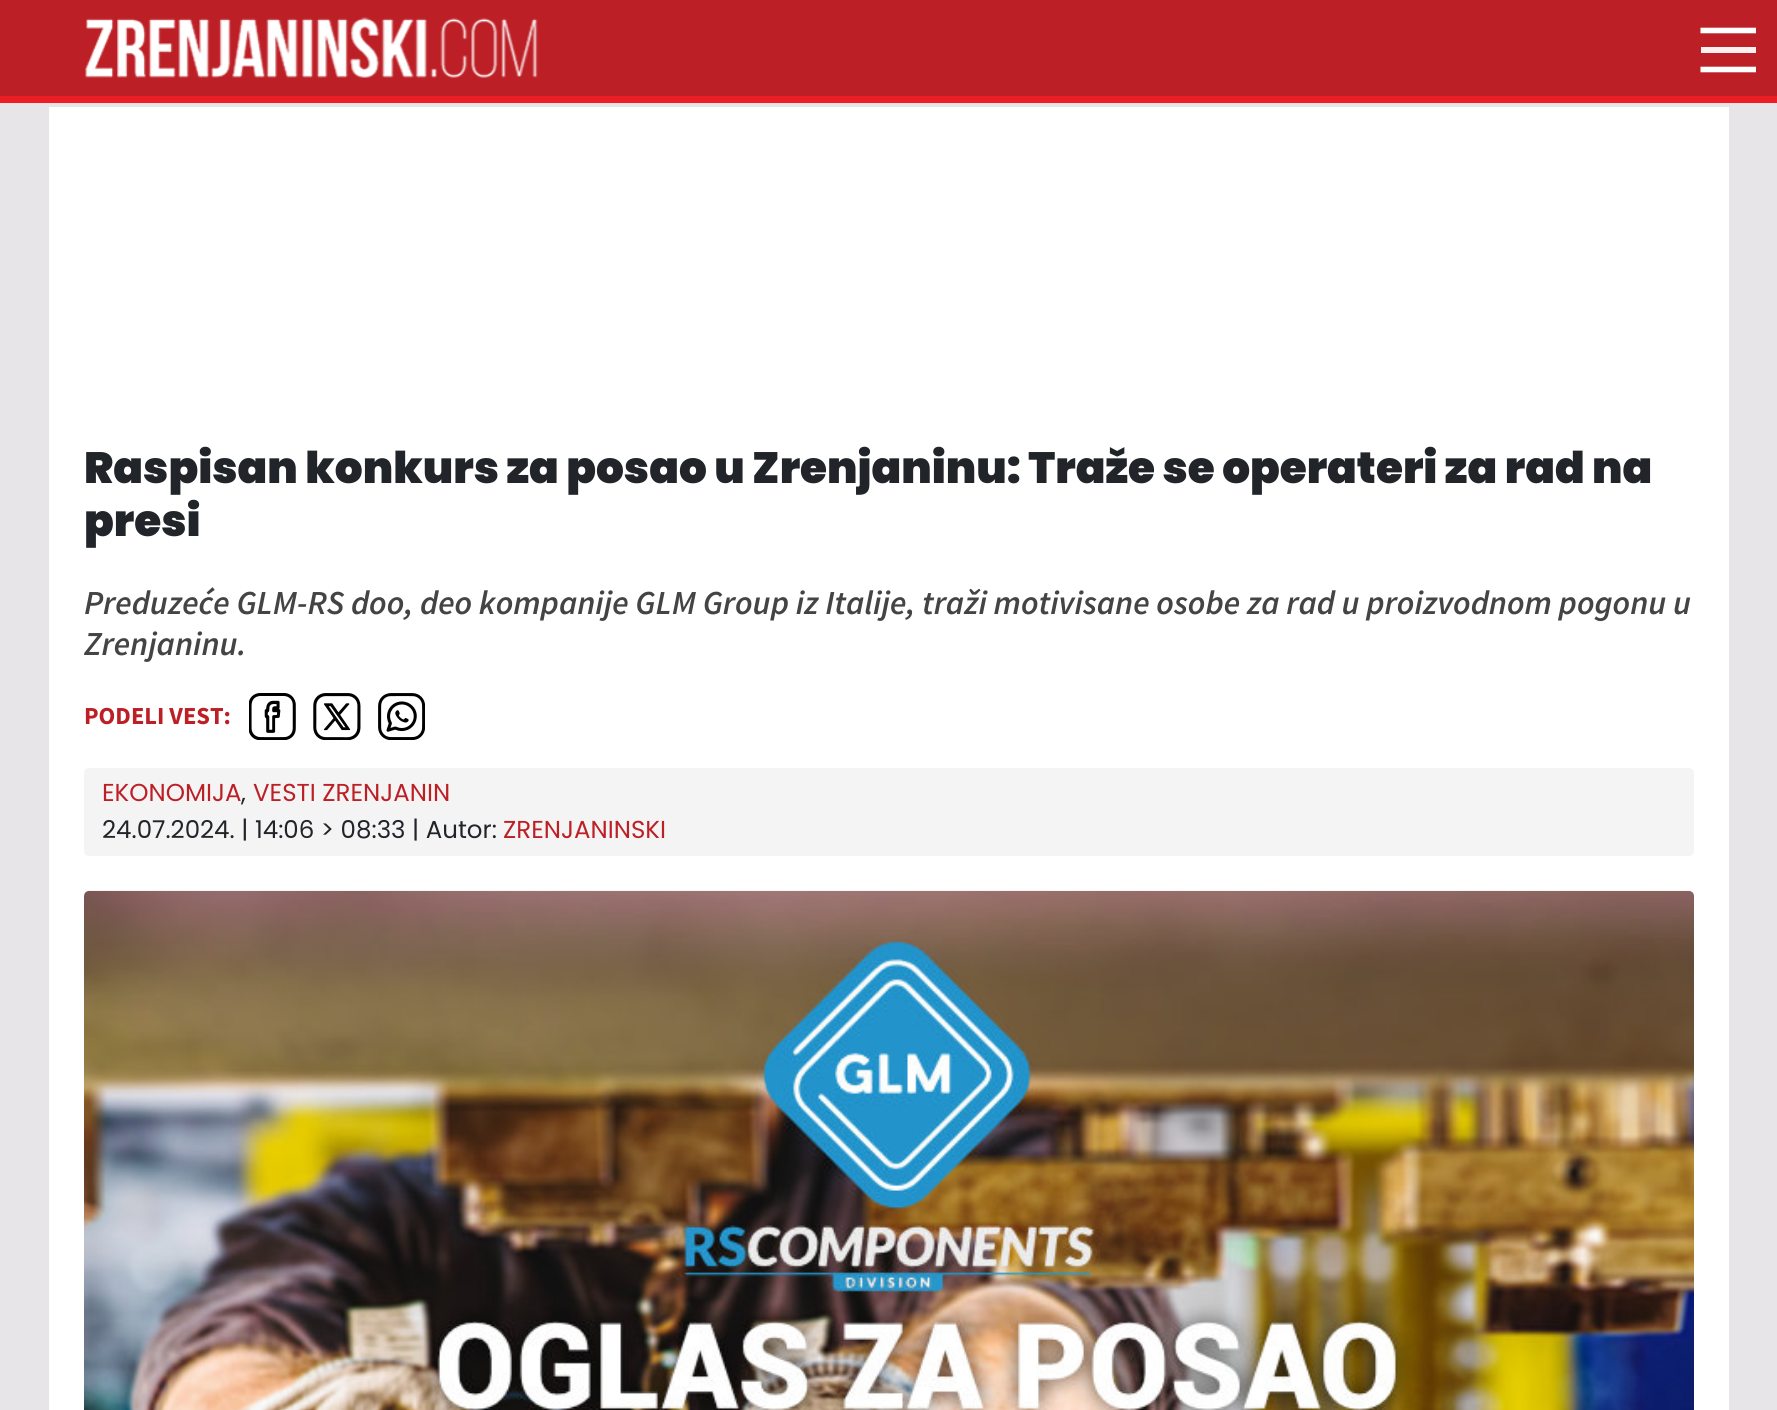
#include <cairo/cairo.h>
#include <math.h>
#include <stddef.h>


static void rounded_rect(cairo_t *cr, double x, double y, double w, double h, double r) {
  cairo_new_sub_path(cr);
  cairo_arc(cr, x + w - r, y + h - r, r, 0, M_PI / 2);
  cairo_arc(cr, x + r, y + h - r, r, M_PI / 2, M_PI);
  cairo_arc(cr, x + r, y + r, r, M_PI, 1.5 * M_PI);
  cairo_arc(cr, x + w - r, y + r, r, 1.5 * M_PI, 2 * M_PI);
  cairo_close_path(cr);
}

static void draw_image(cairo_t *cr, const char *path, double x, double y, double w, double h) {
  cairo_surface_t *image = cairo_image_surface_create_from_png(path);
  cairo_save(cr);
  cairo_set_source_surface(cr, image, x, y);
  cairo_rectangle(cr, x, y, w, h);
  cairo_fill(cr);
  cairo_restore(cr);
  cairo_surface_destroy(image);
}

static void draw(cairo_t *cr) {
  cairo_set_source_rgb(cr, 231 / 255.0, 229 / 255.0, 232 / 255.0);
  cairo_paint(cr);
  cairo_set_source_rgb(cr, 188 / 255.0, 32 / 255.0, 38 / 255.0);
  cairo_rectangle(cr, 0, 0, 1777, 96);
  cairo_fill(cr);
  cairo_set_source_rgb(cr, 237 / 255.0, 29 / 255.0, 38 / 255.0);
  cairo_rectangle(cr, 0, 96, 1777, 7);
  cairo_fill(cr);
  draw_image(cr, "images/1.png", 85, 17, 453, 61);
  cairo_new_path(cr);
  cairo_move_to(cr, 1756, 69.5);
  cairo_line_to(cr, 1700.5, 69.5);
  cairo_set_source_rgb(cr, 1, 1, 1);
  cairo_set_line_width(cr, 5.6);
  cairo_stroke(cr);
  cairo_set_source_rgb(cr, 251 / 255.0, 240 / 255.0, 241 / 255.0);
  cairo_rectangle(cr, 1701, 47, 55, 6);
  cairo_fill(cr);
  cairo_new_path(cr);
  cairo_move_to(cr, 1756, 30.5);
  cairo_line_to(cr, 1700.5, 30.5);
  cairo_set_source_rgb(cr, 1, 1, 1);
  cairo_stroke(cr);
  cairo_rectangle(cr, 49, 107, 1680, 1303);
  cairo_fill(cr);
  draw_image(cr, "images/2.png", 249, 693, 47, 47);
  draw_image(cr, "images/3.png", 313, 693, 48, 47);
  draw_image(cr, "images/4.png", 378, 693, 47, 47);
  cairo_set_source_rgb(cr, 244 / 255.0, 244 / 255.0, 244 / 255.0);
  rounded_rect(cr, 84, 768, 1610, 88, 5);
  cairo_fill(cr);
  draw_image(cr, "images/5.png", 84, 890, 1610, 520);
  cairo_select_font_face(cr, "Poppins Black", CAIRO_FONT_SLANT_NORMAL, CAIRO_FONT_WEIGHT_NORMAL);
  cairo_set_font_size(cr, 43.75);
  cairo_set_source_rgb(cr, 33 / 255.0, 37 / 255.0, 41 / 255.0);
  cairo_move_to(cr, 84, 483);
  cairo_show_text(cr, "Raspisan konkurs za posao u Zrenjaninu: Traže se operateri za rad na");
  cairo_move_to(cr, 84, 536);
  cairo_show_text(cr, "presi");
  cairo_select_font_face(cr, "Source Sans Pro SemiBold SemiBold", CAIRO_FONT_SLANT_ITALIC, CAIRO_FONT_WEIGHT_NORMAL);
  cairo_set_font_size(cr, 33.6);
  cairo_set_source_rgb(cr, 68 / 255.0, 68 / 255.0, 68 / 255.0);
  cairo_move_to(cr, 84, 614);
  cairo_show_text(cr, "Preduzeće GLM-RS doo, deo kompanije GLM Group iz Italije, traži motivisane osobe za rad u proizvodnom pogonu u");
  cairo_move_to(cr, 84, 655);
  cairo_show_text(cr, "Zrenjaninu.");
  cairo_select_font_face(cr, "Source Sans Pro", CAIRO_FONT_SLANT_NORMAL, CAIRO_FONT_WEIGHT_BOLD);
  cairo_set_font_size(cr, 24.5);
  cairo_set_source_rgb(cr, 188 / 255.0, 32 / 255.0, 38 / 255.0);
  cairo_move_to(cr, 84, 724);
  cairo_show_text(cr, "PODELI VEST:");
  cairo_select_font_face(cr, "Poppins", CAIRO_FONT_SLANT_NORMAL, CAIRO_FONT_WEIGHT_NORMAL);
  cairo_move_to(cr, 102, 801);
  cairo_show_text(cr, "EKONOMIJA");
  cairo_set_source_rgb(cr, 33 / 255.0, 37 / 255.0, 41 / 255.0);
  cairo_move_to(cr, 241, 801);
  cairo_show_text(cr, ",");
  cairo_set_source_rgb(cr, 188 / 255.0, 32 / 255.0, 38 / 255.0);
  cairo_move_to(cr, 253, 801);
  cairo_show_text(cr, "VESTI ZRENJANIN");
  cairo_set_source_rgb(cr, 33 / 255.0, 37 / 255.0, 41 / 255.0);
  cairo_move_to(cr, 102, 838);
  cairo_show_text(cr, "24.07.2024. | 14:06 > 08:33 | Autor:");
  cairo_set_source_rgb(cr, 188 / 255.0, 32 / 255.0, 38 / 255.0);
  cairo_move_to(cr, 503, 838);
  cairo_show_text(cr, "ZRENJANINSKI");
}

int main(void) {
  cairo_surface_t *surface = cairo_image_surface_create(CAIRO_FORMAT_RGB24, 1777, 1410);
  cairo_t *cr = cairo_create(surface);
  cairo_font_options_t *options = cairo_font_options_create();
  cairo_font_options_set_hint_metrics(options, CAIRO_HINT_METRICS_OFF);
  cairo_font_options_set_hint_style(options, CAIRO_HINT_STYLE_NONE);
  cairo_set_font_options(cr, options);
  cairo_set_miter_limit(cr, 4);
  draw(cr);
  cairo_surface_write_to_png(surface, "out.png");
  cairo_font_options_destroy(options);
  cairo_destroy(cr);
  cairo_surface_destroy(surface);
  return 0;
}
